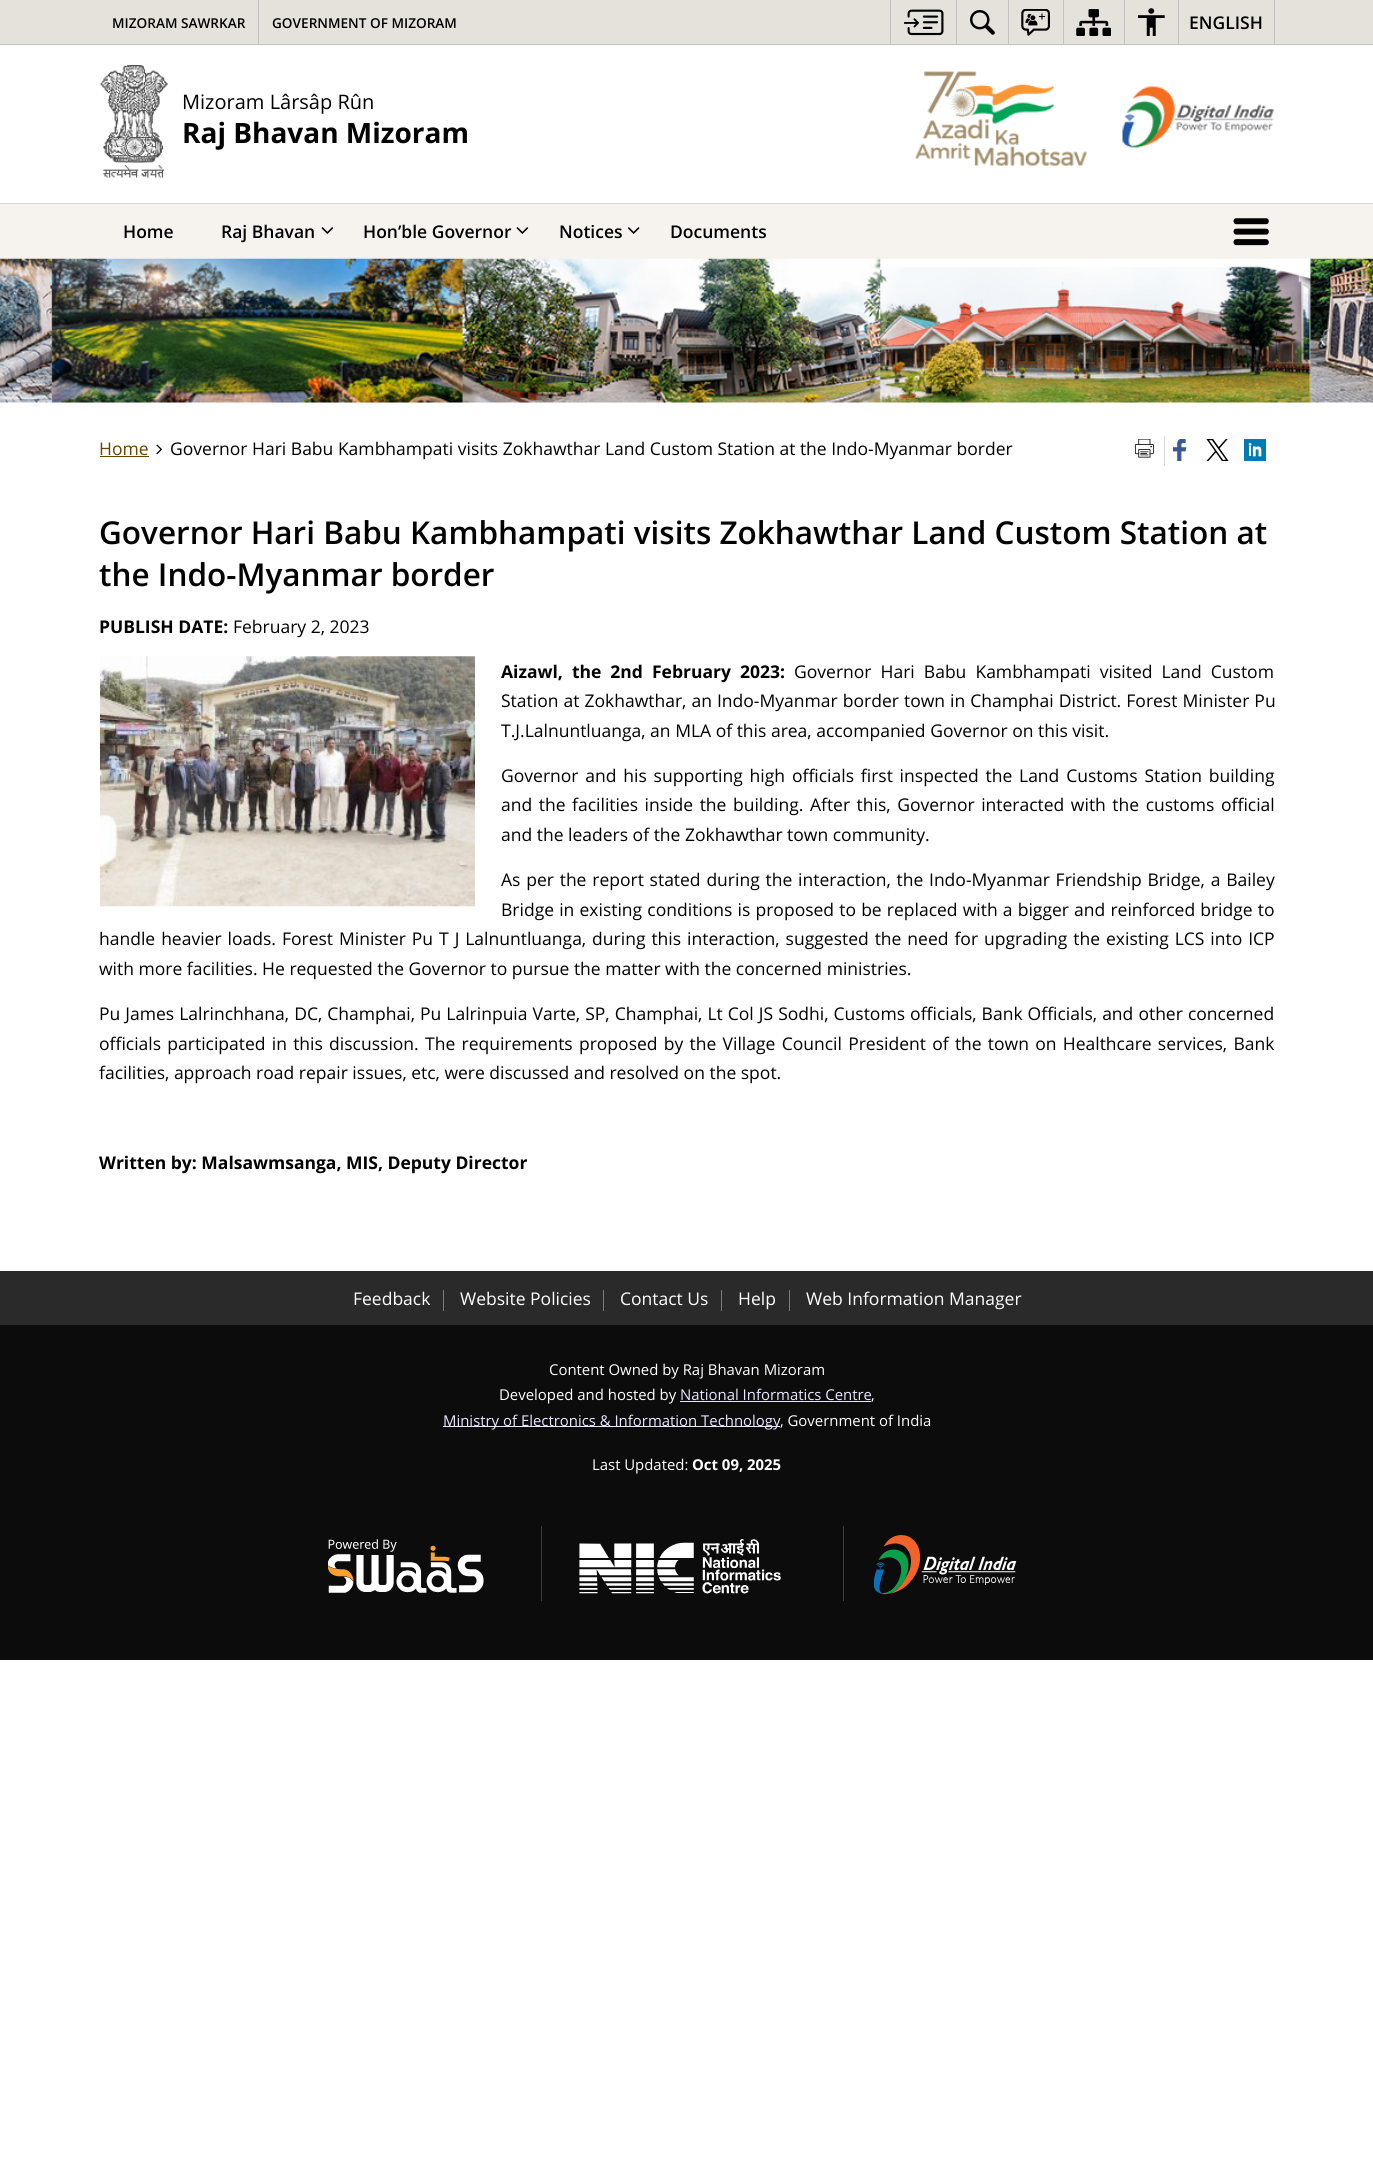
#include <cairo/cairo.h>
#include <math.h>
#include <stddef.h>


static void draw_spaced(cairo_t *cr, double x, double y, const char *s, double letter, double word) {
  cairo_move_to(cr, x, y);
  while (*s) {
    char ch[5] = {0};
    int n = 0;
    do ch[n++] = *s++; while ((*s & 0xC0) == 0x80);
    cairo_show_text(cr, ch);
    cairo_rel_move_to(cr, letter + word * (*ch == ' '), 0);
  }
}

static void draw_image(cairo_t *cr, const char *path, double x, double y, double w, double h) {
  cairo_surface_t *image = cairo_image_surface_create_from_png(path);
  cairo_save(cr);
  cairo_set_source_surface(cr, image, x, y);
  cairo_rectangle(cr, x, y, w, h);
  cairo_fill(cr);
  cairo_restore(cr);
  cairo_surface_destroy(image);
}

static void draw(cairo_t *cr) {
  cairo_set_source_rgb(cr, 1, 1, 1);
  cairo_paint(cr);
  cairo_set_source_rgb(cr, 229 / 255.0, 226 / 255.0, 219 / 255.0);
  cairo_rectangle(cr, 0, 0, 1373, 44);
  cairo_fill(cr);
  cairo_set_source_rgb(cr, 194 / 255.0, 192 / 255.0, 193 / 255.0);
  cairo_rectangle(cr, 0, 44, 1373, 1);
  cairo_fill(cr);
  cairo_rectangle(cr, 258, 0, 1, 44);
  cairo_fill(cr);
  cairo_rectangle(cr, 890, 0, 1, 44);
  cairo_fill(cr);
  draw_image(cr, "images/1.png", 904, 9, 40, 27);
  cairo_rectangle(cr, 956, 0, 1, 44);
  cairo_fill(cr);
  draw_image(cr, "images/2.png", 970, 10, 25, 25);
  cairo_rectangle(cr, 1008, 0, 1, 44);
  cairo_fill(cr);
  draw_image(cr, "images/3.png", 1021, 9, 29, 27);
  cairo_rectangle(cr, 1063, 0, 1, 44);
  cairo_fill(cr);
  draw_image(cr, "images/4.png", 1076, 9, 35, 27);
  cairo_rectangle(cr, 1124, 0, 1, 44);
  cairo_fill(cr);
  draw_image(cr, "images/5.png", 1138, 8, 27, 28);
  cairo_rectangle(cr, 1274, 0, 1, 44);
  cairo_fill(cr);
  cairo_rectangle(cr, 1178, 0, 1, 44);
  cairo_fill(cr);
  draw_image(cr, "images/6.png", 100, 65, 68, 113);
  draw_image(cr, "images/7.png", 915, 71, 172, 95);
  draw_image(cr, "images/8.png", 1122, 86, 152, 62);
  cairo_set_source_rgb(cr, 246 / 255.0, 243 / 255.0, 238 / 255.0);
  cairo_rectangle(cr, 0, 204, 1373, 55);
  cairo_fill(cr);
  cairo_set_source_rgb(cr, 216 / 255.0, 216 / 255.0, 216 / 255.0);
  cairo_rectangle(cr, 0, 203, 1373, 1);
  cairo_fill(cr);
  draw_image(cr, "images/9.png", 321, 227, 13, 7);
  draw_image(cr, "images/9.png", 516, 227, 13, 7);
  draw_image(cr, "images/10.png", 627, 227, 13, 7);
  draw_image(cr, "images/11.png", 1233, 218, 36, 28);
  draw_image(cr, "images/12.png", 0, 258, 1373, 145);
  cairo_set_source_rgb(cr, 106 / 255.0, 69 / 255.0, 1 / 255.0);
  cairo_rectangle(cr, 100, 456, 49, 1);
  cairo_fill(cr);
  draw_image(cr, "images/13.png", 156, 444, 6, 11);
  cairo_set_source_rgb(cr, 216 / 255.0, 216 / 255.0, 216 / 255.0);
  cairo_rectangle(cr, 1164, 436, 1, 30);
  cairo_fill(cr);
  draw_image(cr, "images/14.png", 1135, 439, 19, 19);
  draw_image(cr, "images/15.png", 1172, 439, 15, 22);
  draw_image(cr, "images/16.png", 1206, 439, 23, 22);
  draw_image(cr, "images/17.png", 1244, 439, 22, 22);
  draw_image(cr, "images/18.png", 100, 656, 375, 251);
  cairo_set_source_rgb(cr, 42 / 255.0, 42 / 255.0, 42 / 255.0);
  cairo_rectangle(cr, 0, 1271, 1373, 54);
  cairo_fill(cr);
  cairo_set_source_rgb(cr, 124 / 255.0, 124 / 255.0, 124 / 255.0);
  cairo_rectangle(cr, 443, 1290, 1, 21);
  cairo_fill(cr);
  cairo_rectangle(cr, 603, 1290, 1, 21);
  cairo_fill(cr);
  cairo_rectangle(cr, 721, 1290, 1, 21);
  cairo_fill(cr);
  cairo_rectangle(cr, 789, 1290, 1, 21);
  cairo_fill(cr);
  cairo_set_source_rgb(cr, 12 / 255.0, 12 / 255.0, 12 / 255.0);
  cairo_rectangle(cr, 0, 1325, 1373, 335);
  cairo_fill(cr);
  cairo_set_source_rgb(cr, 234 / 255.0, 230 / 255.0, 1);
  cairo_rectangle(cr, 680, 1401, 191, 1);
  cairo_fill(cr);
  cairo_rectangle(cr, 443, 1426, 337, 1);
  cairo_fill(cr);
  draw_image(cr, "images/19.png", 328, 1539, 156, 54);
  cairo_set_source_rgb(cr, 63 / 255.0, 63 / 255.0, 63 / 255.0);
  cairo_rectangle(cr, 541, 1526, 1, 75);
  cairo_fill(cr);
  draw_image(cr, "images/20.png", 579, 1539, 202, 55);
  cairo_rectangle(cr, 843, 1526, 1, 75);
  cairo_fill(cr);
  draw_image(cr, "images/21.png", 874, 1535, 143, 60);
  cairo_select_font_face(cr, "Open Sans SemiBold", CAIRO_FONT_SLANT_NORMAL, CAIRO_FONT_WEIGHT_NORMAL);
  cairo_set_font_size(cr, 13.6);
  cairo_set_source_rgb(cr, 0, 0, 0);
  cairo_move_to(cr, 112, 28);
  cairo_show_text(cr, "MIZORAM SAWRKAR");
  cairo_move_to(cr, 272, 28);
  cairo_show_text(cr, "GOVERNMENT OF MIZORAM");
  cairo_set_font_size(cr, 17.5);
  cairo_move_to(cr, 1189, 29);
  cairo_show_text(cr, "ENGLISH");
  cairo_select_font_face(cr, "Open Sans", CAIRO_FONT_SLANT_NORMAL, CAIRO_FONT_WEIGHT_NORMAL);
  cairo_set_font_size(cr, 20);
  cairo_move_to(cr, 182, 109);
  cairo_show_text(cr, "Mizoram Lârsâp Rûn");
  cairo_select_font_face(cr, "Open Sans", CAIRO_FONT_SLANT_NORMAL, CAIRO_FONT_WEIGHT_BOLD);
  cairo_set_font_size(cr, 28);
  cairo_move_to(cr, 182, 143);
  cairo_show_text(cr, "Raj Bhavan Mizoram");
  cairo_select_font_face(cr, "Open Sans SemiBold", CAIRO_FONT_SLANT_NORMAL, CAIRO_FONT_WEIGHT_NORMAL);
  cairo_set_font_size(cr, 17.5);
  cairo_move_to(cr, 123, 238);
  cairo_show_text(cr, "Home");
  cairo_move_to(cr, 221, 238);
  cairo_show_text(cr, "Raj Bhavan");
  cairo_move_to(cr, 363, 238);
  cairo_show_text(cr, "Hon’ble Governor");
  cairo_move_to(cr, 559, 238);
  cairo_show_text(cr, "Notices");
  cairo_move_to(cr, 670, 238);
  cairo_show_text(cr, "Documents");
  cairo_select_font_face(cr, "Open Sans", CAIRO_FONT_SLANT_NORMAL, CAIRO_FONT_WEIGHT_NORMAL);
  cairo_set_source_rgb(cr, 106 / 255.0, 69 / 255.0, 1 / 255.0);
  cairo_move_to(cr, 99, 455);
  cairo_show_text(cr, "Home");
  cairo_set_source_rgb(cr, 0, 0, 0);
  cairo_move_to(cr, 170, 455);
  cairo_show_text(cr, "Governor Hari Babu Kambhampati visits Zokhawthar Land Custom Station at the Indo-Myanmar border");
  cairo_select_font_face(cr, "Open Sans SemiBold", CAIRO_FONT_SLANT_NORMAL, CAIRO_FONT_WEIGHT_NORMAL);
  cairo_set_font_size(cr, 31.5);
  cairo_move_to(cr, 99, 544);
  cairo_show_text(cr, "Governor Hari Babu Kambhampati visits Zokhawthar Land Custom Station at");
  cairo_move_to(cr, 99, 586);
  cairo_show_text(cr, "the Indo-Myanmar border");
  cairo_select_font_face(cr, "Open Sans", CAIRO_FONT_SLANT_NORMAL, CAIRO_FONT_WEIGHT_BOLD);
  cairo_set_font_size(cr, 17.5);
  cairo_move_to(cr, 99, 633);
  cairo_show_text(cr, "PUBLISH DATE:");
  cairo_select_font_face(cr, "Open Sans", CAIRO_FONT_SLANT_NORMAL, CAIRO_FONT_WEIGHT_NORMAL);
  cairo_move_to(cr, 233, 633);
  cairo_show_text(cr, "February 2, 2023");
  cairo_select_font_face(cr, "Open Sans", CAIRO_FONT_SLANT_NORMAL, CAIRO_FONT_WEIGHT_BOLD);
  draw_spaced(cr, 501, 678, "Aizawl, the 2nd February 2023:", 0, 4.5);
  cairo_select_font_face(cr, "Open Sans", CAIRO_FONT_SLANT_NORMAL, CAIRO_FONT_WEIGHT_NORMAL);
  draw_spaced(cr, 794, 678, "Governor Hari Babu Kambhampati visited Land Custom", 0, 4.5);
  draw_spaced(cr, 501, 707, "Station at Zokhawthar, an Indo-Myanmar border town in Champhai District. Forest Minister Pu", 0, 0.5);
  cairo_move_to(cr, 501, 737);
  cairo_show_text(cr, "T.J.Lalnuntluanga, an MLA of this area, accompanied Governor on this visit.");
  draw_spaced(cr, 501, 782, "Governor and his supporting high officials first inspected the Land Customs Station building", 0, 2.25);
  draw_spaced(cr, 501, 811, "and the facilities inside the building. After this, Governor interacted with the customs official", 0, 2);
  cairo_move_to(cr, 501, 841);
  cairo_show_text(cr, "and the leaders of the Zokhawthar town community.");
  draw_spaced(cr, 501, 886, "As per the report stated during the interaction, the Indo-Myanmar Friendship Bridge, a Bailey", 0, 1.25);
  draw_spaced(cr, 501, 916, "Bridge in existing conditions is proposed to be replaced with a bigger and reinforced bridge to", 0, 0.6);
  draw_spaced(cr, 99, 945, "handle heavier loads. Forest Minister Pu T J Lalnuntluanga, during this interaction, suggested the need for upgrading the existing LCS into ICP", 0, 1.4);
  cairo_move_to(cr, 99, 975);
  cairo_show_text(cr, "with more facilities. He requested the Governor to pursue the matter with the concerned ministries.");
  draw_spaced(cr, 99, 1020, "Pu James Lalrinchhana, DC, Champhai, Pu Lalrinpuia Varte, SP, Champhai, Lt Col JS Sodhi, Customs officials, Bank Officials, and other concerned", 0, 0.5);
  draw_spaced(cr, 99, 1050, "officials participated in this discussion. The requirements proposed by the Village Council President of the town on Healthcare services, Bank", 0, 1.7);
  cairo_move_to(cr, 99, 1079);
  cairo_show_text(cr, "facilities, approach road repair issues, etc, were discussed and resolved on the spot.");
  cairo_select_font_face(cr, "Open Sans", CAIRO_FONT_SLANT_NORMAL, CAIRO_FONT_WEIGHT_BOLD);
  cairo_move_to(cr, 99, 1169);
  cairo_show_text(cr, "Written by: Malsawmsanga, MIS, Deputy Director");
  cairo_select_font_face(cr, "Open Sans", CAIRO_FONT_SLANT_NORMAL, CAIRO_FONT_WEIGHT_NORMAL);
  cairo_set_source_rgb(cr, 1, 1, 1);
  cairo_move_to(cr, 353, 1305);
  cairo_show_text(cr, "Feedback");
  cairo_move_to(cr, 460, 1305);
  cairo_show_text(cr, "Website Policies");
  cairo_move_to(cr, 620, 1305);
  cairo_show_text(cr, "Contact Us");
  cairo_move_to(cr, 738, 1305);
  cairo_show_text(cr, "Help");
  cairo_move_to(cr, 806, 1305);
  cairo_show_text(cr, "Web Information Manager");
  cairo_set_font_size(cr, 14.9);
  cairo_move_to(cr, 549, 1375);
  cairo_show_text(cr, "Content Owned by Raj Bhavan Mizoram");
  cairo_move_to(cr, 499, 1400);
  cairo_show_text(cr, "Developed and hosted by");
  cairo_set_source_rgb(cr, 234 / 255.0, 230 / 255.0, 1);
  cairo_move_to(cr, 680, 1400);
  cairo_show_text(cr, "National Informatics Centre");
  cairo_set_source_rgb(cr, 1, 1, 1);
  cairo_move_to(cr, 871, 1400);
  cairo_show_text(cr, ",");
  cairo_set_source_rgb(cr, 234 / 255.0, 230 / 255.0, 1);
  cairo_move_to(cr, 443, 1426);
  cairo_show_text(cr, "Ministry of Electronics & Information Technology");
  cairo_set_source_rgb(cr, 1, 1, 1);
  cairo_move_to(cr, 780, 1426);
  cairo_show_text(cr, ", Government of India");
  cairo_move_to(cr, 592, 1470);
  cairo_show_text(cr, "Last Updated:");
  cairo_select_font_face(cr, "Open Sans", CAIRO_FONT_SLANT_NORMAL, CAIRO_FONT_WEIGHT_BOLD);
  cairo_move_to(cr, 692, 1470);
  cairo_show_text(cr, "Oct 09, 2025");
}

int main(void) {
  cairo_surface_t *surface = cairo_image_surface_create(CAIRO_FORMAT_RGB24, 1373, 2180);
  cairo_t *cr = cairo_create(surface);
  cairo_font_options_t *options = cairo_font_options_create();
  cairo_font_options_set_hint_metrics(options, CAIRO_HINT_METRICS_OFF);
  cairo_font_options_set_hint_style(options, CAIRO_HINT_STYLE_NONE);
  cairo_set_font_options(cr, options);
  cairo_set_miter_limit(cr, 4);
  draw(cr);
  cairo_surface_write_to_png(surface, "out.png");
  cairo_font_options_destroy(options);
  cairo_destroy(cr);
  cairo_surface_destroy(surface);
  return 0;
}
